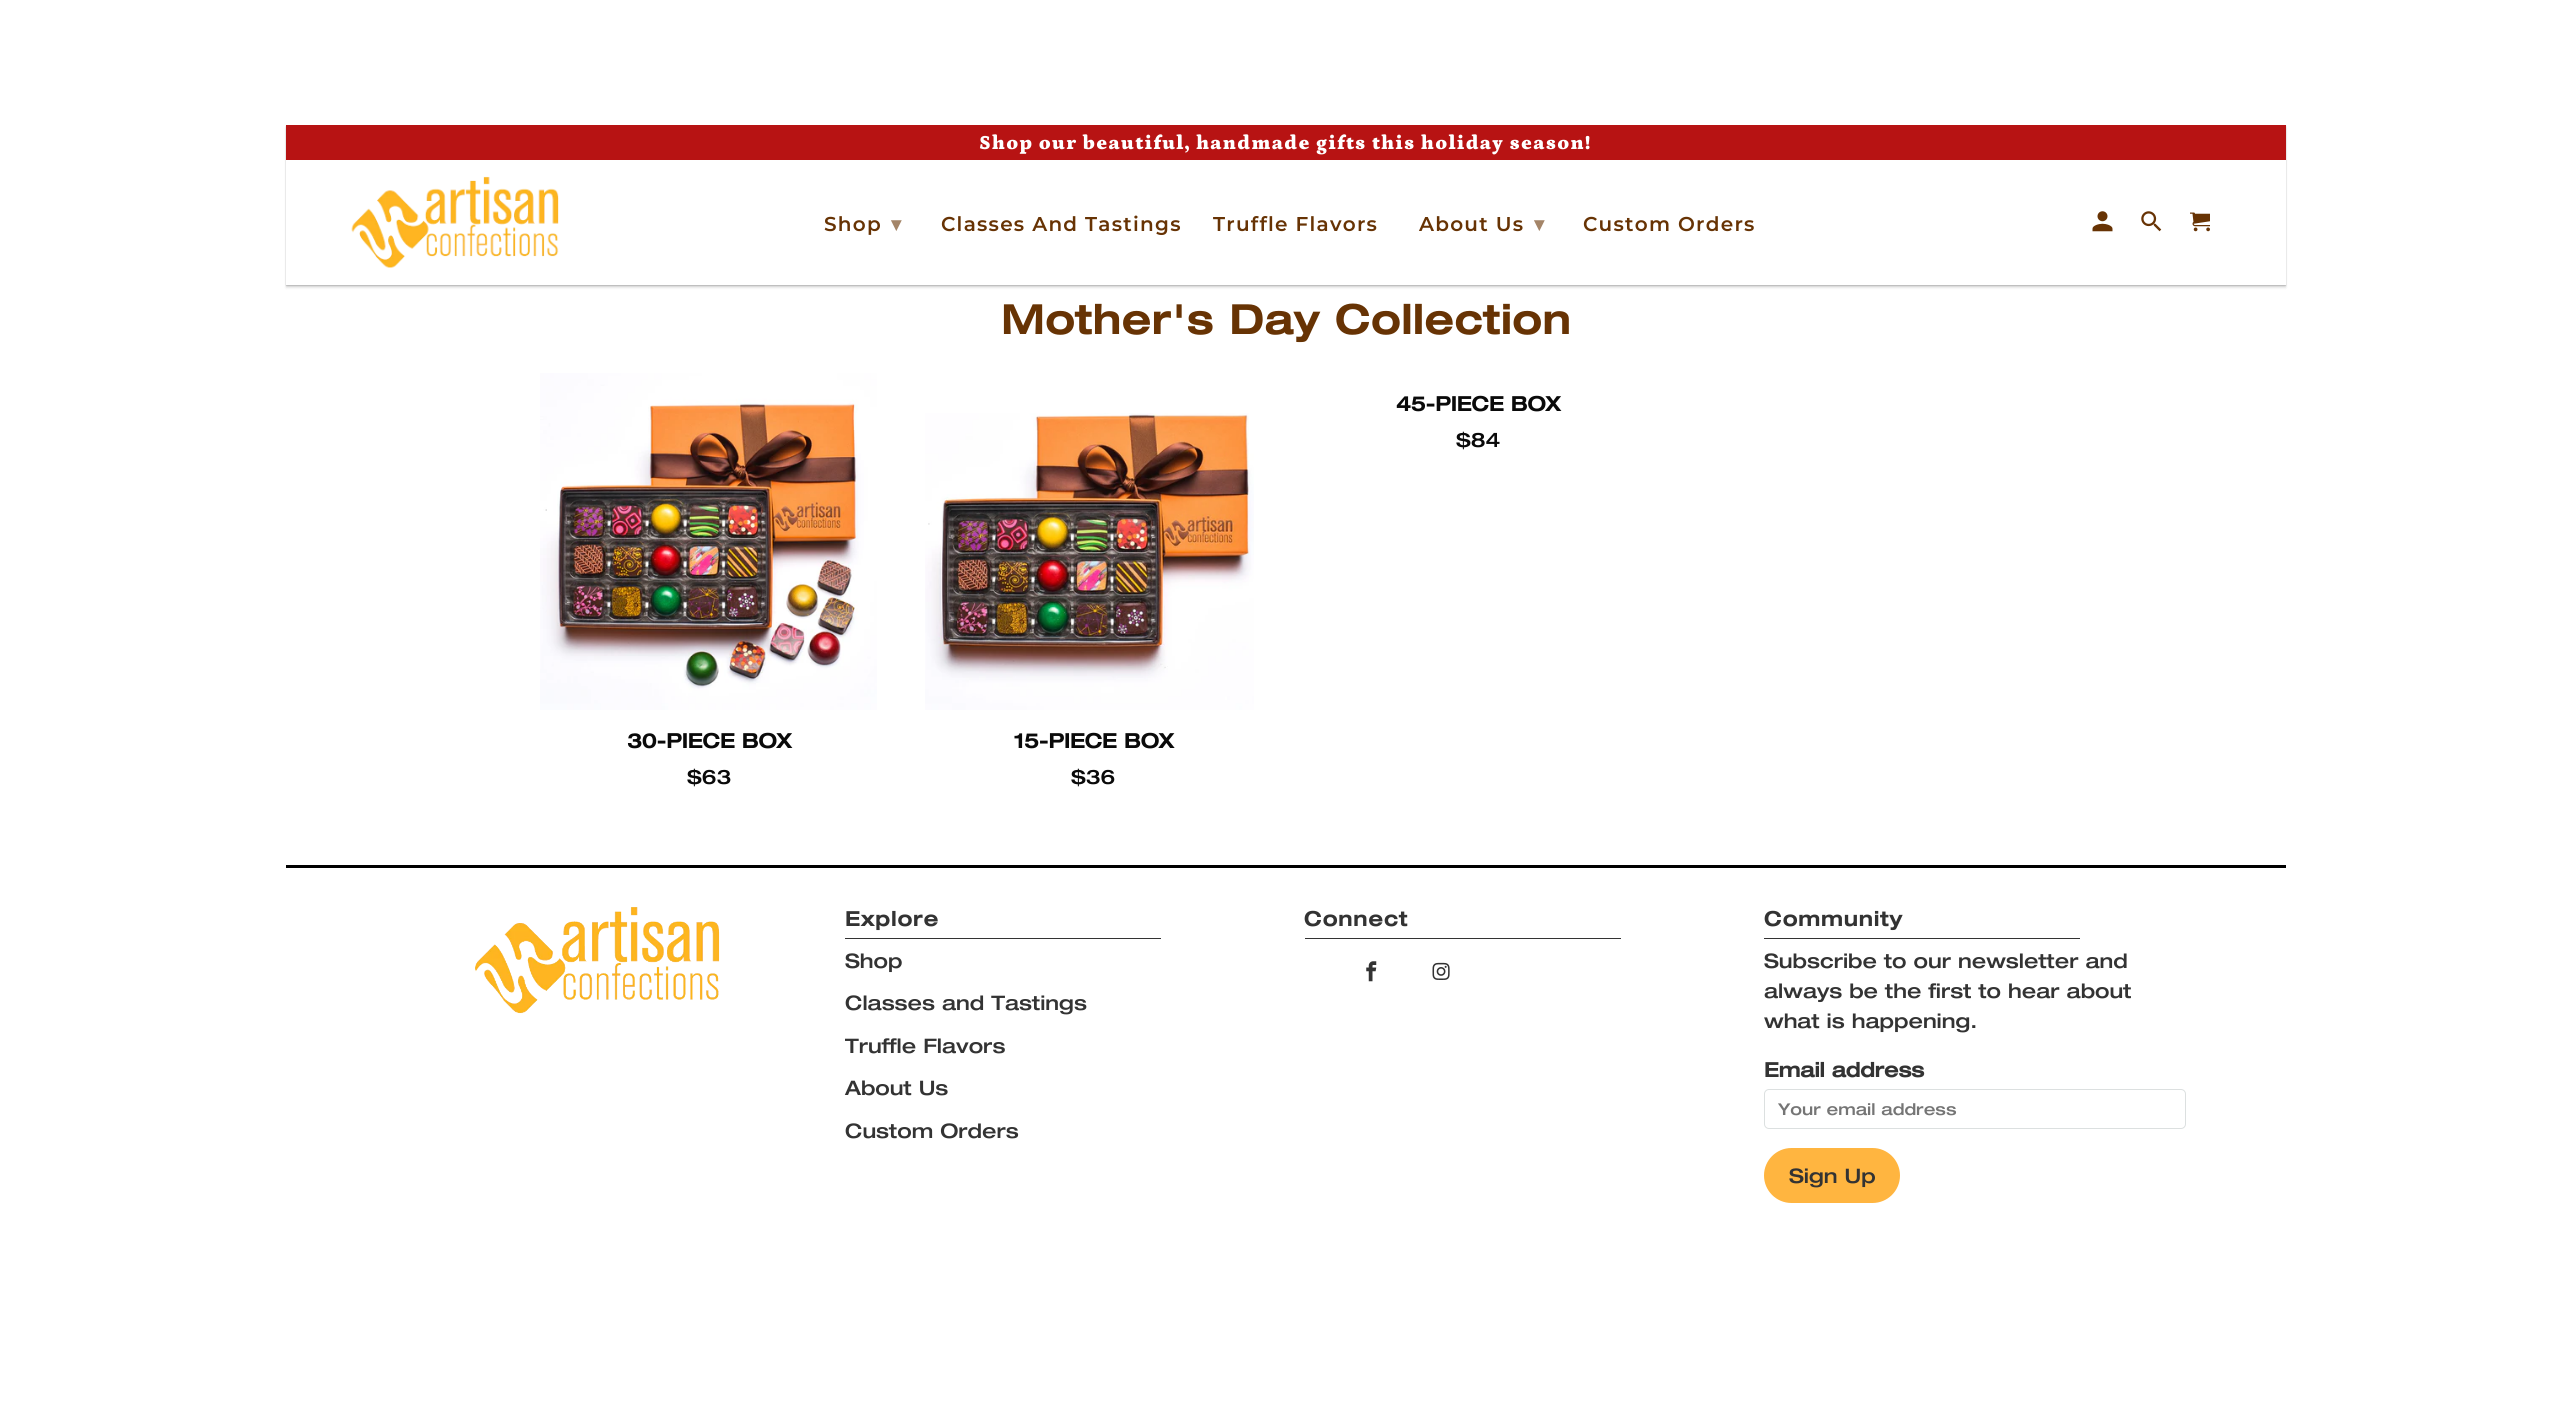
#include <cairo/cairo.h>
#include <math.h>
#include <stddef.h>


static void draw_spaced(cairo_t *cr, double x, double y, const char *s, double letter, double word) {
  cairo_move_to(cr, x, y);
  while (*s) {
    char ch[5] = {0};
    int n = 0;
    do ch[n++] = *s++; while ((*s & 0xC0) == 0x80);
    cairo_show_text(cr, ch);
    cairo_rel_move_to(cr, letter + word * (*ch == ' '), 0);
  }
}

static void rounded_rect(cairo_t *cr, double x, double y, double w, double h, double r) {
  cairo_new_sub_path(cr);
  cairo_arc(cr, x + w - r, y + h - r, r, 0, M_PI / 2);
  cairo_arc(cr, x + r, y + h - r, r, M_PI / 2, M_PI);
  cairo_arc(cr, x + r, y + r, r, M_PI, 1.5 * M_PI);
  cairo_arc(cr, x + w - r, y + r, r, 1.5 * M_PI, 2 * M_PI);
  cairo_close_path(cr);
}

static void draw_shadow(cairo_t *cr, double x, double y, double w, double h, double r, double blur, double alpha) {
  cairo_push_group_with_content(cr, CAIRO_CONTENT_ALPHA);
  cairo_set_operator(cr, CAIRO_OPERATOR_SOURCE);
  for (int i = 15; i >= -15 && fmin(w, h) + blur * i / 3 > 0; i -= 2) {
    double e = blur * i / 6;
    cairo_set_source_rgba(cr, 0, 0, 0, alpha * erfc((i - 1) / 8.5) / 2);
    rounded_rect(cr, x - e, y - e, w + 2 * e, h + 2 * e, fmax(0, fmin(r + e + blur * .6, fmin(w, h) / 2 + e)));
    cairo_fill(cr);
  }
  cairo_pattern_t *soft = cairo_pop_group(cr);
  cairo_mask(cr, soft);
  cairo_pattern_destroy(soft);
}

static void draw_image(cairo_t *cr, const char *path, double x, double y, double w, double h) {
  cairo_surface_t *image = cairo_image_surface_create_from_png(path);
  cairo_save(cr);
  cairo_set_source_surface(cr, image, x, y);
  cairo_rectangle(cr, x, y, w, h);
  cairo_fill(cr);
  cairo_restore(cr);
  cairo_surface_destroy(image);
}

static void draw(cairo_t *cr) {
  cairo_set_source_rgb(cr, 1, 1, 1);
  cairo_paint(cr);
  cairo_set_source_rgb(cr, 0, 0, 0);
  draw_shadow(cr, 286, 128, 2000, 160, 0, 1, 0.1);
  draw_shadow(cr, 286, 126, 2000, 160, 0, 0.5, 0.2);
  cairo_set_source_rgb(cr, 183 / 255.0, 19 / 255.0, 19 / 255.0);
  cairo_rectangle(cr, 286, 125, 2000, 35);
  cairo_fill(cr);
  cairo_set_source_rgb(cr, 1, 1, 1);
  cairo_rectangle(cr, 286, 160, 2000, 125);
  cairo_fill(cr);
  draw_image(cr, "images/1.png", 351, 176, 208, 93);
  draw_image(cr, "images/2.png", 2092, 211, 21, 21);
  draw_image(cr, "images/3.png", 2141, 211, 21, 21);
  draw_image(cr, "images/4.png", 2190, 212, 20, 20);
  draw_image(cr, "images/5.png", 540, 373, 337, 337);
  draw_image(cr, "images/6.png", 925, 413, 329, 297);
  cairo_set_source_rgb(cr, 0, 0, 0);
  cairo_rectangle(cr, 286, 865, 2000, 3);
  cairo_fill(cr);
  draw_image(cr, "images/7.png", 475, 907, 245, 107);
  cairo_set_source_rgb(cr, 51 / 255.0, 51 / 255.0, 51 / 255.0);
  cairo_rectangle(cr, 845, 938, 316, 1);
  cairo_fill(cr);
  cairo_rectangle(cr, 1305, 938, 316, 1);
  cairo_fill(cr);
  draw_image(cr, "images/8.png", 1366, 961, 11, 21);
  draw_image(cr, "images/9.png", 1432, 962, 18, 18);
  cairo_rectangle(cr, 1764, 938, 316, 1);
  cairo_fill(cr);
  rounded_rect(cr, 1764.5, 1089.5, 421, 39, 4.5);
  cairo_set_source_rgb(cr, 220 / 255.0, 224 / 255.0, 224 / 255.0);
  cairo_set_line_width(cr, 1);
  cairo_stroke(cr);
  cairo_set_source_rgb(cr, 1, 181 / 255.0, 64 / 255.0);
  rounded_rect(cr, 1764, 1148, 136, 55, 27.5);
  cairo_fill(cr);
  cairo_select_font_face(cr, "Petrona Black", CAIRO_FONT_SLANT_NORMAL, CAIRO_FONT_WEIGHT_NORMAL);
  cairo_set_font_size(cr, 20);
  cairo_set_source_rgb(cr, 1, 1, 1);
  draw_spaced(cr, 979, 149, "Shop our beautiful, handmade gifts this holiday season!", 1.25, 0);
  cairo_select_font_face(cr, "Montserrat SemiBold", CAIRO_FONT_SLANT_NORMAL, CAIRO_FONT_WEIGHT_NORMAL);
  cairo_set_source_rgb(cr, 103 / 255.0, 51 / 255.0, 4 / 255.0);
  draw_spaced(cr, 824, 231, "Shop", 1.25, 0);
  cairo_select_font_face(cr, "DejaVu Sans", CAIRO_FONT_SLANT_NORMAL, CAIRO_FONT_WEIGHT_BOLD);
  cairo_set_source_rgb(cr, 164 / 255.0, 133 / 255.0, 104 / 255.0);
  draw_spaced(cr, 891, 231, "▾", 1.25, 0);
  cairo_select_font_face(cr, "Montserrat SemiBold", CAIRO_FONT_SLANT_NORMAL, CAIRO_FONT_WEIGHT_NORMAL);
  cairo_set_source_rgb(cr, 103 / 255.0, 51 / 255.0, 4 / 255.0);
  draw_spaced(cr, 941, 231, "Classes And Tastings", 1.25, 0);
  draw_spaced(cr, 1213, 231, "Truffle Flavors", 1.25, 0);
  draw_spaced(cr, 1419, 231, "About Us", 1.25, 0);
  cairo_select_font_face(cr, "DejaVu Sans", CAIRO_FONT_SLANT_NORMAL, CAIRO_FONT_WEIGHT_BOLD);
  cairo_set_source_rgb(cr, 164 / 255.0, 133 / 255.0, 104 / 255.0);
  draw_spaced(cr, 1534, 231, "▾", 1.25, 0);
  cairo_select_font_face(cr, "Montserrat SemiBold", CAIRO_FONT_SLANT_NORMAL, CAIRO_FONT_WEIGHT_NORMAL);
  cairo_set_source_rgb(cr, 103 / 255.0, 51 / 255.0, 4 / 255.0);
  draw_spaced(cr, 1583, 231, "Custom Orders", 1.25, 0);
  cairo_select_font_face(cr, "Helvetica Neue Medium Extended", CAIRO_FONT_SLANT_NORMAL, CAIRO_FONT_WEIGHT_BOLD);
  cairo_set_font_size(cr, 40);
  draw_spaced(cr, 1001, 334, "Mother's Day Collection", 1.25, 0);
  cairo_set_font_size(cr, 20);
  cairo_set_source_rgb(cr, 10 / 255.0, 10 / 255.0, 10 / 255.0);
  cairo_move_to(cr, 1396, 411);
  cairo_show_text(cr, "45-PIECE BOX");
  cairo_select_font_face(cr, "Helvetica Neue Medium Extended Medium", CAIRO_FONT_SLANT_NORMAL, CAIRO_FONT_WEIGHT_NORMAL);
  cairo_move_to(cr, 1456, 447);
  cairo_show_text(cr, "$84");
  cairo_select_font_face(cr, "Helvetica Neue Medium Extended", CAIRO_FONT_SLANT_NORMAL, CAIRO_FONT_WEIGHT_BOLD);
  cairo_move_to(cr, 627, 748);
  cairo_show_text(cr, "30-PIECE BOX");
  cairo_select_font_face(cr, "Helvetica Neue Medium Extended Medium", CAIRO_FONT_SLANT_NORMAL, CAIRO_FONT_WEIGHT_NORMAL);
  cairo_move_to(cr, 687, 784);
  cairo_show_text(cr, "$63");
  cairo_select_font_face(cr, "Helvetica Neue Medium Extended", CAIRO_FONT_SLANT_NORMAL, CAIRO_FONT_WEIGHT_BOLD);
  cairo_move_to(cr, 1014, 748);
  cairo_show_text(cr, "15-PIECE BOX");
  cairo_select_font_face(cr, "Helvetica Neue Medium Extended Medium", CAIRO_FONT_SLANT_NORMAL, CAIRO_FONT_WEIGHT_NORMAL);
  cairo_move_to(cr, 1071, 784);
  cairo_show_text(cr, "$36");
  cairo_select_font_face(cr, "Helvetica Neue Medium Extended", CAIRO_FONT_SLANT_NORMAL, CAIRO_FONT_WEIGHT_BOLD);
  cairo_set_source_rgb(cr, 51 / 255.0, 51 / 255.0, 51 / 255.0);
  draw_spaced(cr, 845, 926, "Explore", 1.25, 0);
  cairo_select_font_face(cr, "Helvetica Neue Medium Extended Medium", CAIRO_FONT_SLANT_NORMAL, CAIRO_FONT_WEIGHT_NORMAL);
  cairo_move_to(cr, 845, 968);
  cairo_show_text(cr, "Shop");
  cairo_move_to(cr, 845, 1010);
  cairo_show_text(cr, "Classes and Tastings");
  cairo_move_to(cr, 845, 1053);
  cairo_show_text(cr, "Truffle Flavors");
  cairo_move_to(cr, 845, 1095);
  cairo_show_text(cr, "About Us");
  cairo_move_to(cr, 845, 1138);
  cairo_show_text(cr, "Custom Orders");
  cairo_select_font_face(cr, "Helvetica Neue Medium Extended", CAIRO_FONT_SLANT_NORMAL, CAIRO_FONT_WEIGHT_BOLD);
  draw_spaced(cr, 1304, 926, "Connect", 1.25, 0);
  draw_spaced(cr, 1764, 926, "Community", 1.25, 0);
  cairo_select_font_face(cr, "Helvetica Neue Medium Extended Medium", CAIRO_FONT_SLANT_NORMAL, CAIRO_FONT_WEIGHT_NORMAL);
  cairo_move_to(cr, 1764, 968);
  cairo_show_text(cr, "Subscribe to our newsletter and");
  cairo_move_to(cr, 1764, 998);
  cairo_show_text(cr, "always be the first to hear about");
  cairo_move_to(cr, 1764, 1028);
  cairo_show_text(cr, "what is happening.");
  cairo_select_font_face(cr, "Helvetica Neue Medium Extended", CAIRO_FONT_SLANT_NORMAL, CAIRO_FONT_WEIGHT_BOLD);
  cairo_move_to(cr, 1764, 1077);
  cairo_show_text(cr, "Email address");
  cairo_select_font_face(cr, "Helvetica Neue Medium Extended Medium", CAIRO_FONT_SLANT_NORMAL, CAIRO_FONT_WEIGHT_NORMAL);
  cairo_set_font_size(cr, 16.25);
  cairo_set_source_rgb(cr, 117 / 255.0, 117 / 255.0, 117 / 255.0);
  cairo_move_to(cr, 1778, 1115);
  cairo_show_text(cr, "Your email address");
  cairo_set_font_size(cr, 20);
  cairo_set_source_rgb(cr, 51 / 255.0, 51 / 255.0, 51 / 255.0);
  cairo_move_to(cr, 1789, 1183);
  cairo_show_text(cr, "Sign Up");
}

int main(void) {
  cairo_surface_t *surface = cairo_image_surface_create(CAIRO_FORMAT_RGB24, 2571, 1424);
  cairo_t *cr = cairo_create(surface);
  cairo_font_options_t *options = cairo_font_options_create();
  cairo_font_options_set_hint_metrics(options, CAIRO_HINT_METRICS_OFF);
  cairo_font_options_set_hint_style(options, CAIRO_HINT_STYLE_NONE);
  cairo_set_font_options(cr, options);
  cairo_set_miter_limit(cr, 4);
  draw(cr);
  cairo_surface_write_to_png(surface, "out.png");
  cairo_font_options_destroy(options);
  cairo_destroy(cr);
  cairo_surface_destroy(surface);
  return 0;
}
